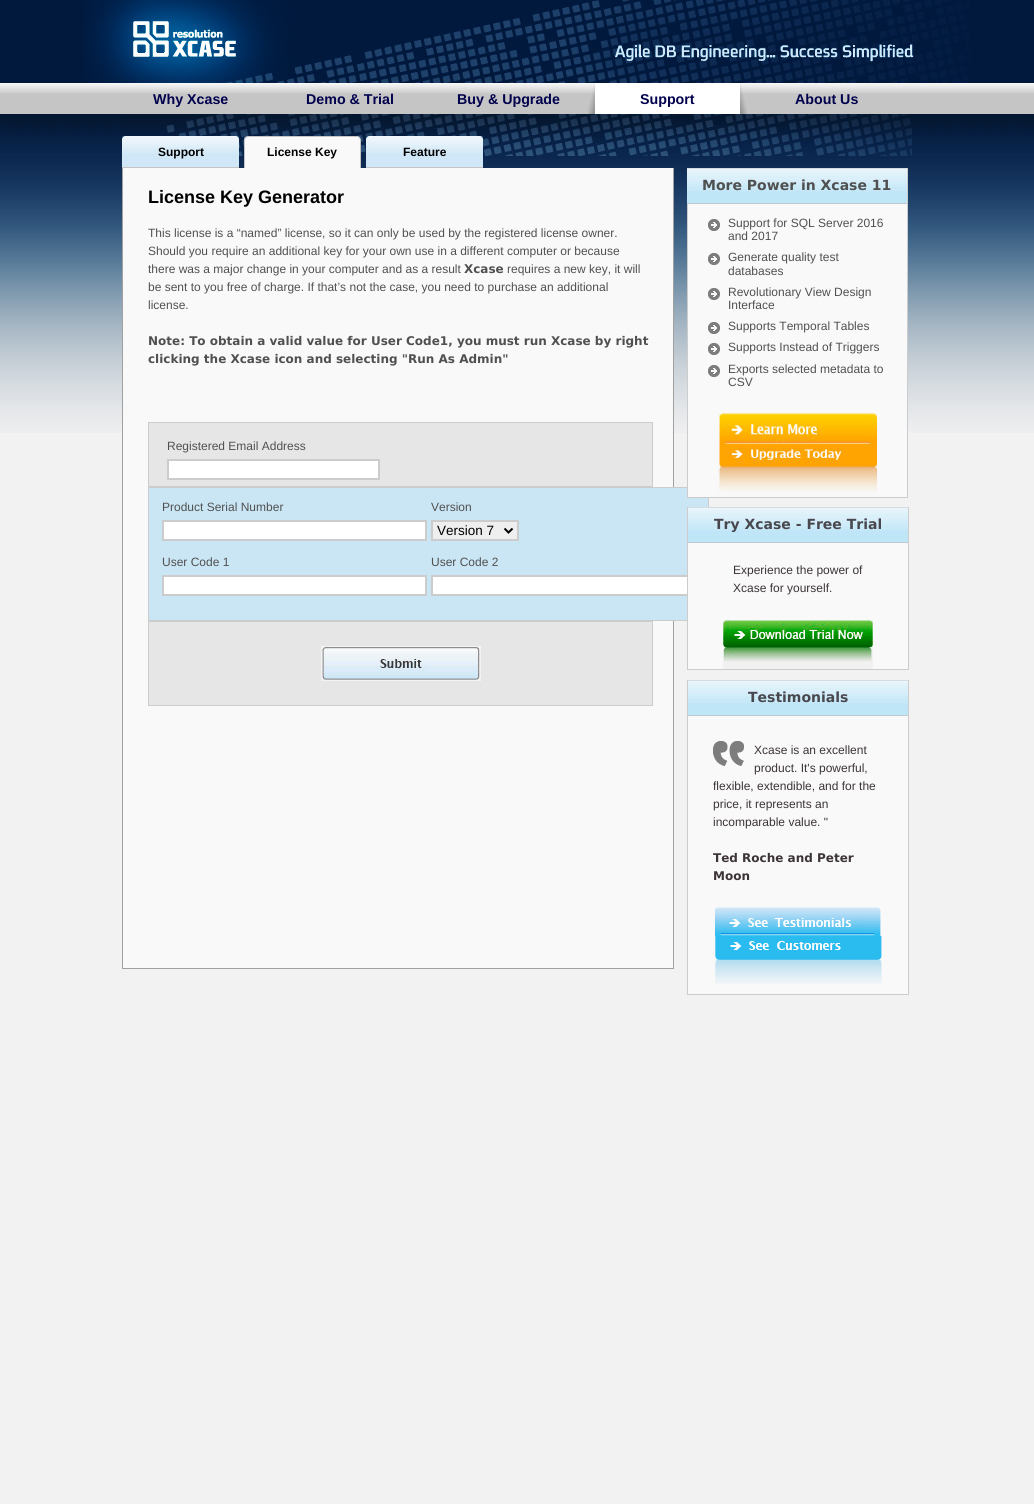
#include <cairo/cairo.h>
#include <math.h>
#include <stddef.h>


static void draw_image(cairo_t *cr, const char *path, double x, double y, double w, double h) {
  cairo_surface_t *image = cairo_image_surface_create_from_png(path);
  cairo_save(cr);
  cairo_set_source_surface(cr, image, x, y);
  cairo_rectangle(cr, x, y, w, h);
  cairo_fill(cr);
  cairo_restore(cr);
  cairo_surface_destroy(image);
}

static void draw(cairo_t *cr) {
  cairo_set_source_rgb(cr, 242 / 255.0, 242 / 255.0, 242 / 255.0);
  cairo_paint(cr);
  draw_image(cr, "images/1.png", 0, 0, 1034, 433);
  draw_image(cr, "images/2.png", 84, 0, 886, 83);
  draw_image(cr, "images/3.png", 588, 83, 159, 31);
  draw_image(cr, "images/4.png", 126, 114, 786, 42);
  draw_image(cr, "images/5.png", 122, 136, 117, 32);
  draw_image(cr, "images/6.png", 244, 136, 117, 32);
  draw_image(cr, "images/5.png", 366, 136, 117, 32);
  cairo_set_source_rgb(cr, 249 / 255.0, 249 / 255.0, 249 / 255.0);
  cairo_rectangle(cr, 123, 168, 550, 800);
  cairo_fill(cr);
  cairo_set_source_rgb(cr, 160 / 255.0, 160 / 255.0, 160 / 255.0);
  cairo_rectangle(cr, 673, 168, 1, 801);
  cairo_fill(cr);
  cairo_rectangle(cr, 122, 968, 552, 1);
  cairo_fill(cr);
  cairo_rectangle(cr, 122, 168, 1, 801);
  cairo_fill(cr);
  cairo_set_source_rgb(cr, 230 / 255.0, 230 / 255.0, 230 / 255.0);
  cairo_rectangle(cr, 148.5, 422.5, 504, 64);
  cairo_fill_preserve(cr);
  cairo_set_source_rgb(cr, 204 / 255.0, 204 / 255.0, 204 / 255.0);
  cairo_set_line_width(cr, 1);
  cairo_stroke(cr);
  cairo_set_source_rgb(cr, 1, 1, 1);
  cairo_rectangle(cr, 168, 460, 211, 19);
  cairo_fill_preserve(cr);
  cairo_set_source_rgb(cr, 204 / 255.0, 204 / 255.0, 204 / 255.0);
  cairo_set_line_width(cr, 2);
  cairo_stroke(cr);
  cairo_set_source_rgb(cr, 202 / 255.0, 230 / 255.0, 244 / 255.0);
  cairo_rectangle(cr, 148.5, 487.5, 560, 133);
  cairo_fill_preserve(cr);
  cairo_set_source_rgb(cr, 204 / 255.0, 204 / 255.0, 204 / 255.0);
  cairo_set_line_width(cr, 1);
  cairo_stroke(cr);
  cairo_set_source_rgb(cr, 1, 1, 1);
  cairo_rectangle(cr, 163, 521, 263, 19);
  cairo_fill_preserve(cr);
  cairo_set_source_rgb(cr, 204 / 255.0, 204 / 255.0, 204 / 255.0);
  cairo_set_line_width(cr, 2);
  cairo_stroke(cr);
  cairo_set_source_rgb(cr, 239 / 255.0, 239 / 255.0, 239 / 255.0);
  cairo_rectangle(cr, 432, 521, 86, 19);
  cairo_fill_preserve(cr);
  cairo_set_source_rgb(cr, 204 / 255.0, 204 / 255.0, 204 / 255.0);
  cairo_stroke(cr);
  cairo_new_path(cr);
  cairo_move_to(cr, 504.5, 528.5);
  cairo_line_to(cr, 508.5, 532.5);
  cairo_line_to(cr, 512.5, 528.5);
  cairo_set_source_rgb(cr, 0, 0, 0);
  cairo_stroke(cr);
  cairo_set_source_rgb(cr, 1, 1, 1);
  cairo_rectangle(cr, 163, 576, 263, 19);
  cairo_fill_preserve(cr);
  cairo_set_source_rgb(cr, 204 / 255.0, 204 / 255.0, 204 / 255.0);
  cairo_stroke(cr);
  cairo_set_source_rgb(cr, 1, 1, 1);
  cairo_rectangle(cr, 433, 577, 254, 17);
  cairo_fill(cr);
  cairo_rectangle(cr, 432, 576, 263, 19);
  cairo_set_source_rgb(cr, 204 / 255.0, 204 / 255.0, 204 / 255.0);
  cairo_stroke(cr);
  cairo_set_source_rgb(cr, 230 / 255.0, 230 / 255.0, 230 / 255.0);
  cairo_rectangle(cr, 148.5, 621.5, 504, 84);
  cairo_fill_preserve(cr);
  cairo_set_source_rgb(cr, 204 / 255.0, 204 / 255.0, 204 / 255.0);
  cairo_set_line_width(cr, 1);
  cairo_stroke(cr);
  draw_image(cr, "images/7.png", 321, 646, 160, 35);
  cairo_set_source_rgb(cr, 249 / 255.0, 249 / 255.0, 249 / 255.0);
  cairo_rectangle(cr, 688, 204, 219, 293);
  cairo_fill(cr);
  cairo_set_source_rgb(cr, 204 / 255.0, 204 / 255.0, 204 / 255.0);
  cairo_rectangle(cr, 907, 168, 1, 330);
  cairo_fill(cr);
  cairo_rectangle(cr, 687, 497, 221, 1);
  cairo_fill(cr);
  draw_image(cr, "images/8.png", 687, 168, 220, 36);
  cairo_rectangle(cr, 687, 204, 1, 293);
  cairo_fill(cr);
  draw_image(cr, "images/9.png", 708, 219, 12, 12);
  draw_image(cr, "images/9.png", 708, 253, 12, 12);
  draw_image(cr, "images/9.png", 708, 288, 12, 12);
  draw_image(cr, "images/9.png", 708, 322, 12, 12);
  draw_image(cr, "images/9.png", 708, 343, 12, 12);
  draw_image(cr, "images/9.png", 708, 365, 12, 12);
  draw_image(cr, "images/10.png", 718, 412, 159, 30);
  draw_image(cr, "images/11.png", 718, 442, 159, 50);
  cairo_set_source_rgb(cr, 249 / 255.0, 249 / 255.0, 249 / 255.0);
  cairo_rectangle(cr, 688, 543, 220, 126);
  cairo_fill(cr);
  cairo_set_source_rgb(cr, 204 / 255.0, 204 / 255.0, 204 / 255.0);
  cairo_rectangle(cr, 908, 507, 1, 163);
  cairo_fill(cr);
  cairo_rectangle(cr, 687, 669, 222, 1);
  cairo_fill(cr);
  cairo_rectangle(cr, 687, 507, 1, 163);
  cairo_fill(cr);
  draw_image(cr, "images/8.png", 688, 507, 220, 36);
  draw_image(cr, "images/12.png", 723, 620, 150, 49);
  cairo_set_source_rgb(cr, 249 / 255.0, 249 / 255.0, 249 / 255.0);
  cairo_rectangle(cr, 688, 716, 220, 278);
  cairo_fill(cr);
  cairo_set_source_rgb(cr, 204 / 255.0, 204 / 255.0, 204 / 255.0);
  cairo_rectangle(cr, 908, 680, 1, 315);
  cairo_fill(cr);
  cairo_rectangle(cr, 687, 994, 222, 1);
  cairo_fill(cr);
  cairo_rectangle(cr, 687, 680, 1, 315);
  cairo_fill(cr);
  draw_image(cr, "images/8.png", 688, 680, 220, 36);
  draw_image(cr, "images/13.png", 713, 741, 31, 25);
  draw_image(cr, "images/14.png", 715, 907, 167, 29);
  draw_image(cr, "images/15.png", 715, 936, 167, 48);
  cairo_select_font_face(cr, "Liberation Sans", CAIRO_FONT_SLANT_NORMAL, CAIRO_FONT_WEIGHT_BOLD);
  cairo_set_font_size(cr, 14.25);
  cairo_set_source_rgb(cr, 0, 0, 77 / 255.0);
  cairo_move_to(cr, 153, 104);
  cairo_show_text(cr, "Why Xcase");
  cairo_move_to(cr, 306, 104);
  cairo_show_text(cr, "Demo & Trial");
  cairo_move_to(cr, 457, 104);
  cairo_show_text(cr, "Buy & Upgrade");
  cairo_move_to(cr, 640, 104);
  cairo_show_text(cr, "Support");
  cairo_move_to(cr, 795, 104);
  cairo_show_text(cr, "About Us");
  cairo_set_font_size(cr, 12);
  cairo_set_source_rgb(cr, 0, 0, 0);
  cairo_move_to(cr, 158, 156);
  cairo_show_text(cr, "Support");
  cairo_move_to(cr, 267, 156);
  cairo_show_text(cr, "License Key");
  cairo_move_to(cr, 403, 156);
  cairo_show_text(cr, "Feature");
  cairo_set_font_size(cr, 18);
  cairo_move_to(cr, 148, 203);
  cairo_show_text(cr, "License Key Generator");
  cairo_select_font_face(cr, "Liberation Sans", CAIRO_FONT_SLANT_NORMAL, CAIRO_FONT_WEIGHT_NORMAL);
  cairo_set_font_size(cr, 12);
  cairo_set_source_rgb(cr, 80 / 255.0, 80 / 255.0, 80 / 255.0);
  cairo_move_to(cr, 148, 237);
  cairo_show_text(cr, "This license is a “named” license, so it can only be used by the registered license owner.");
  cairo_move_to(cr, 148, 255);
  cairo_show_text(cr, "Should you require an additional key for your own use in a different computer or because");
  cairo_move_to(cr, 148, 273);
  cairo_show_text(cr, "there was a major change in your computer and as a result");
  cairo_select_font_face(cr, "DejaVu Sans", CAIRO_FONT_SLANT_NORMAL, CAIRO_FONT_WEIGHT_BOLD);
  cairo_move_to(cr, 464, 273);
  cairo_show_text(cr, "Xcase");
  cairo_select_font_face(cr, "Liberation Sans", CAIRO_FONT_SLANT_NORMAL, CAIRO_FONT_WEIGHT_NORMAL);
  cairo_move_to(cr, 507, 273);
  cairo_show_text(cr, "requires a new key, it will");
  cairo_move_to(cr, 148, 291);
  cairo_show_text(cr, "be sent to you free of charge. If that’s not the case, you need to purchase an additional");
  cairo_move_to(cr, 148, 309);
  cairo_show_text(cr, "license.");
  cairo_select_font_face(cr, "DejaVu Sans", CAIRO_FONT_SLANT_NORMAL, CAIRO_FONT_WEIGHT_BOLD);
  cairo_move_to(cr, 148, 345);
  cairo_show_text(cr, "Note: To obtain a valid value for User Code1, you must run Xcase by right");
  cairo_move_to(cr, 148, 363);
  cairo_show_text(cr, "clicking the Xcase icon and selecting \"Run As Admin\"");
  cairo_select_font_face(cr, "Liberation Sans", CAIRO_FONT_SLANT_NORMAL, CAIRO_FONT_WEIGHT_NORMAL);
  cairo_move_to(cr, 167, 450);
  cairo_show_text(cr, "Registered Email Address");
  cairo_move_to(cr, 162, 511);
  cairo_show_text(cr, "Product Serial Number");
  cairo_move_to(cr, 431, 511);
  cairo_show_text(cr, "Version");
  cairo_set_font_size(cr, 13.5);
  cairo_set_source_rgb(cr, 0, 0, 0);
  cairo_move_to(cr, 437, 535);
  cairo_show_text(cr, "Version 7");
  cairo_set_font_size(cr, 12);
  cairo_set_source_rgb(cr, 80 / 255.0, 80 / 255.0, 80 / 255.0);
  cairo_move_to(cr, 162, 566);
  cairo_show_text(cr, "User Code 1");
  cairo_move_to(cr, 431, 566);
  cairo_show_text(cr, "User Code 2");
  cairo_select_font_face(cr, "DejaVu Sans", CAIRO_FONT_SLANT_NORMAL, CAIRO_FONT_WEIGHT_BOLD);
  cairo_set_font_size(cr, 14);
  cairo_move_to(cr, 702, 190);
  cairo_show_text(cr, "More Power in Xcase 11");
  cairo_select_font_face(cr, "Liberation Sans", CAIRO_FONT_SLANT_NORMAL, CAIRO_FONT_WEIGHT_NORMAL);
  cairo_set_font_size(cr, 12);
  cairo_move_to(cr, 728, 227);
  cairo_show_text(cr, "Support for SQL Server 2016");
  cairo_move_to(cr, 728, 240);
  cairo_show_text(cr, "and 2017");
  cairo_move_to(cr, 728, 261);
  cairo_show_text(cr, "Generate quality test");
  cairo_move_to(cr, 728, 275);
  cairo_show_text(cr, "databases");
  cairo_move_to(cr, 728, 296);
  cairo_show_text(cr, "Revolutionary View Design");
  cairo_move_to(cr, 728, 309);
  cairo_show_text(cr, "Interface");
  cairo_move_to(cr, 728, 330);
  cairo_show_text(cr, "Supports Temporal Tables");
  cairo_move_to(cr, 728, 351);
  cairo_show_text(cr, "Supports Instead of Triggers");
  cairo_move_to(cr, 728, 373);
  cairo_show_text(cr, "Exports selected metadata to");
  cairo_move_to(cr, 728, 386);
  cairo_show_text(cr, "CSV");
  cairo_select_font_face(cr, "DejaVu Sans", CAIRO_FONT_SLANT_NORMAL, CAIRO_FONT_WEIGHT_BOLD);
  cairo_set_font_size(cr, 14);
  cairo_set_source_rgb(cr, 73 / 255.0, 72 / 255.0, 78 / 255.0);
  cairo_move_to(cr, 714, 529);
  cairo_show_text(cr, "Try Xcase - Free Trial");
  cairo_select_font_face(cr, "Liberation Sans", CAIRO_FONT_SLANT_NORMAL, CAIRO_FONT_WEIGHT_NORMAL);
  cairo_set_font_size(cr, 12);
  cairo_set_source_rgb(cr, 60 / 255.0, 52 / 255.0, 54 / 255.0);
  cairo_move_to(cr, 733, 574);
  cairo_show_text(cr, "Experience the power of");
  cairo_move_to(cr, 733, 592);
  cairo_show_text(cr, "Xcase for yourself.");
  cairo_select_font_face(cr, "DejaVu Sans", CAIRO_FONT_SLANT_NORMAL, CAIRO_FONT_WEIGHT_BOLD);
  cairo_set_font_size(cr, 14);
  cairo_set_source_rgb(cr, 73 / 255.0, 72 / 255.0, 78 / 255.0);
  cairo_move_to(cr, 748, 702);
  cairo_show_text(cr, "Testimonials");
  cairo_select_font_face(cr, "Liberation Sans", CAIRO_FONT_SLANT_NORMAL, CAIRO_FONT_WEIGHT_NORMAL);
  cairo_set_font_size(cr, 12);
  cairo_set_source_rgb(cr, 60 / 255.0, 52 / 255.0, 54 / 255.0);
  cairo_move_to(cr, 754, 754);
  cairo_show_text(cr, "Xcase is an excellent");
  cairo_move_to(cr, 754, 772);
  cairo_show_text(cr, "product. It's powerful,");
  cairo_move_to(cr, 713, 790);
  cairo_show_text(cr, "flexible, extendible, and for the");
  cairo_move_to(cr, 713, 808);
  cairo_show_text(cr, "price, it represents an");
  cairo_move_to(cr, 713, 826);
  cairo_show_text(cr, "incomparable value. \"");
  cairo_select_font_face(cr, "DejaVu Sans", CAIRO_FONT_SLANT_NORMAL, CAIRO_FONT_WEIGHT_BOLD);
  cairo_move_to(cr, 713, 862);
  cairo_show_text(cr, "Ted Roche and Peter");
  cairo_move_to(cr, 713, 880);
  cairo_show_text(cr, "Moon");
}

int main(void) {
  cairo_surface_t *surface = cairo_image_surface_create(CAIRO_FORMAT_RGB24, 1034, 1504);
  cairo_t *cr = cairo_create(surface);
  cairo_font_options_t *options = cairo_font_options_create();
  cairo_font_options_set_hint_metrics(options, CAIRO_HINT_METRICS_OFF);
  cairo_font_options_set_hint_style(options, CAIRO_HINT_STYLE_NONE);
  cairo_set_font_options(cr, options);
  cairo_set_miter_limit(cr, 4);
  draw(cr);
  cairo_surface_write_to_png(surface, "out.png");
  cairo_font_options_destroy(options);
  cairo_destroy(cr);
  cairo_surface_destroy(surface);
  return 0;
}
